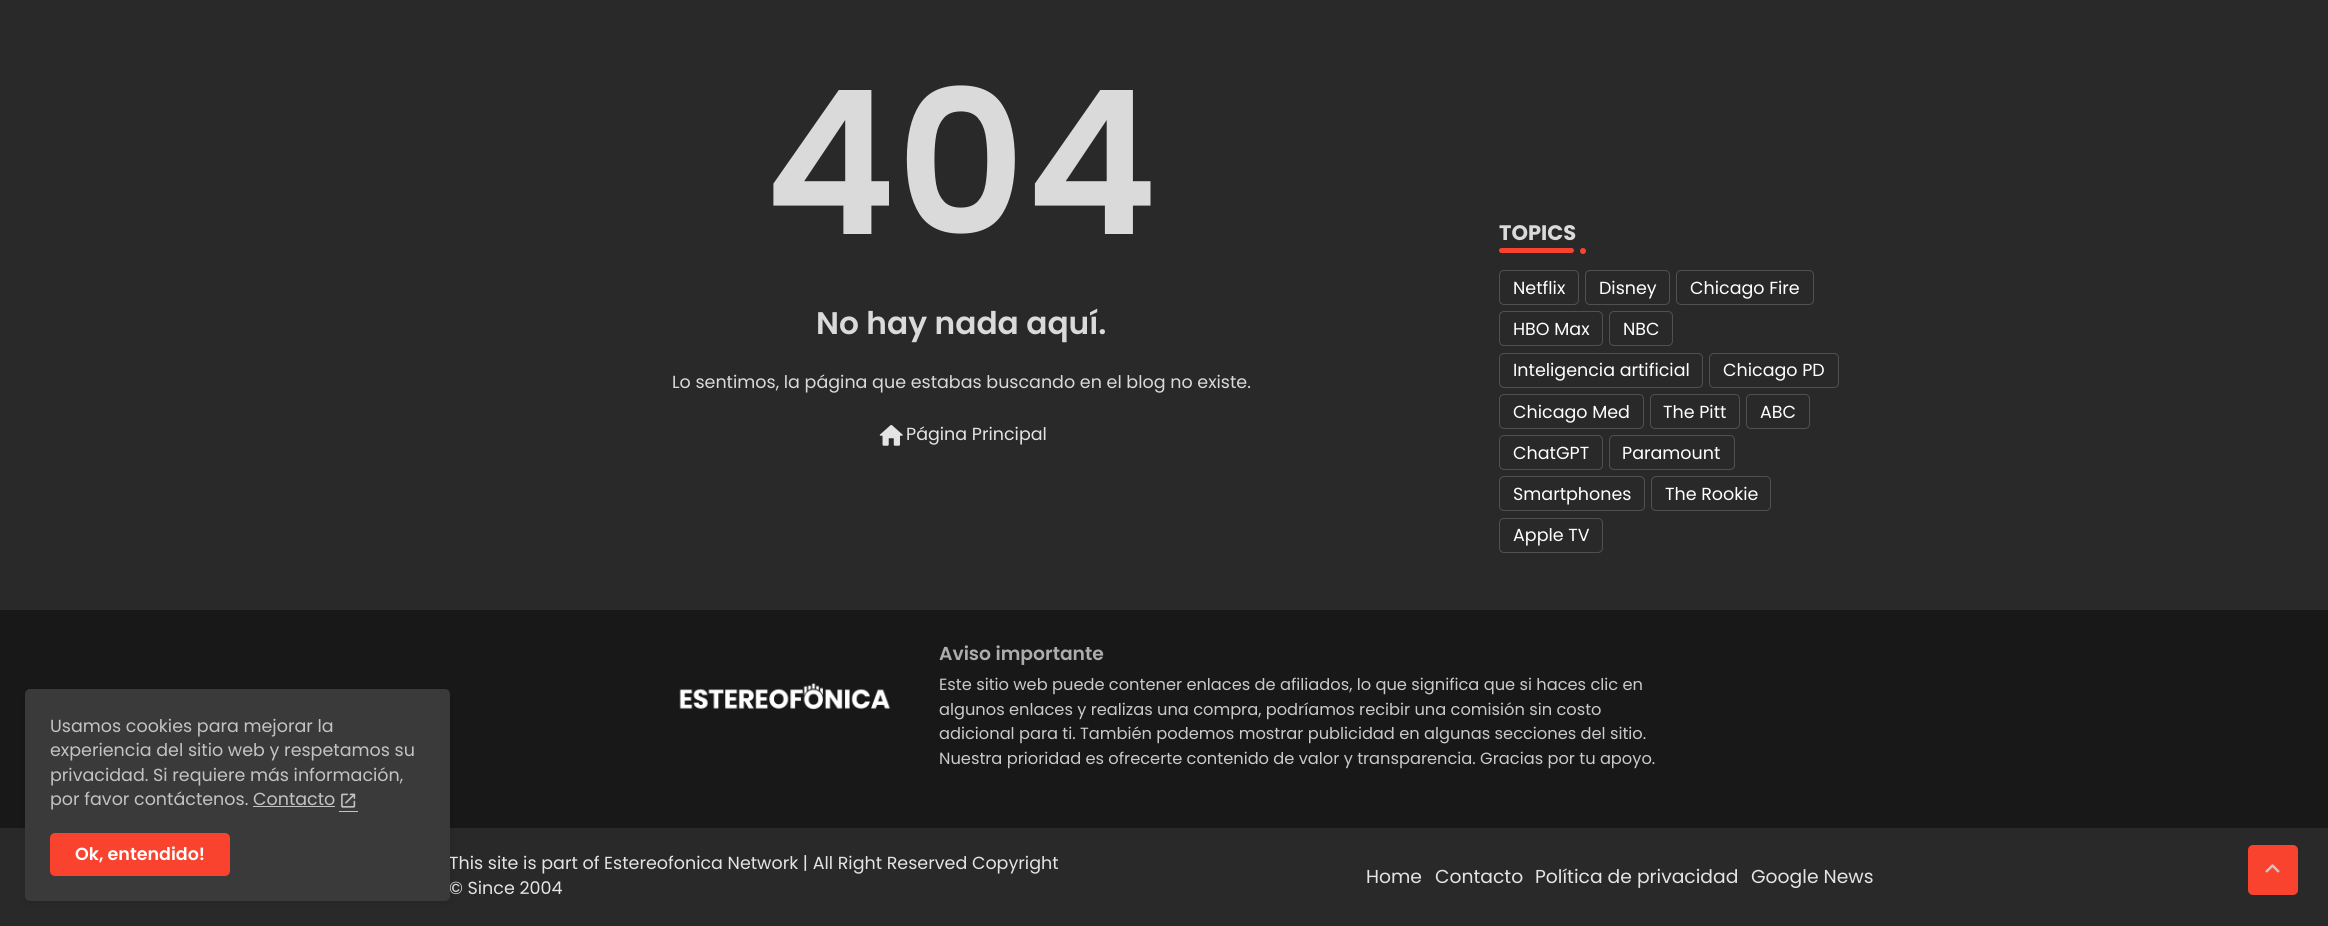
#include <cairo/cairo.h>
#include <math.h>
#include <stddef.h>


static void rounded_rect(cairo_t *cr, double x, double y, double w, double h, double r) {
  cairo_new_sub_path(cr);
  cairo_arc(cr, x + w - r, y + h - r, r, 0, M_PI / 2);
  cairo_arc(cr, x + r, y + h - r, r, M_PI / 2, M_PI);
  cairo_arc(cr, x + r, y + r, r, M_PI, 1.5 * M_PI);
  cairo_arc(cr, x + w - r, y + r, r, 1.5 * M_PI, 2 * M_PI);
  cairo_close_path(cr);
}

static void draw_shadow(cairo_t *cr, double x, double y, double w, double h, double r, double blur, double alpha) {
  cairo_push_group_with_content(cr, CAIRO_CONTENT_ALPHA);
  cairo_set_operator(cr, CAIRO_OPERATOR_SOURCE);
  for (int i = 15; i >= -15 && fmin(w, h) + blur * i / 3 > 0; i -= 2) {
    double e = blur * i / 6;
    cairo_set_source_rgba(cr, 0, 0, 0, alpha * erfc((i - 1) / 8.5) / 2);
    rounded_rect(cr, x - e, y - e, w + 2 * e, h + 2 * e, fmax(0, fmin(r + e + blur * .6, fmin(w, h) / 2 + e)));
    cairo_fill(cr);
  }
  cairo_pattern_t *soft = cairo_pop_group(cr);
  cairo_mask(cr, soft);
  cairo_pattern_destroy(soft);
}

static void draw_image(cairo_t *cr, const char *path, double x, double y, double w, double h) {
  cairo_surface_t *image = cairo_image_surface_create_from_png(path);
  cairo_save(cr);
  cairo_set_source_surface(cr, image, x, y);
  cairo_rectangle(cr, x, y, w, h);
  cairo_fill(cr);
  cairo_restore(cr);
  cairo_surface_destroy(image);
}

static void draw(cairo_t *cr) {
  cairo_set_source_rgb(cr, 41 / 255.0, 41 / 255.0, 41 / 255.0);
  cairo_paint(cr);
  draw_image(cr, "images/1.png", 879, 425, 24, 21);
  cairo_set_source_rgb(cr, 250 / 255.0, 67 / 255.0, 47 / 255.0);
  rounded_rect(cr, 1499, 248, 75, 5, 2.5);
  cairo_fill(cr);
  cairo_arc(cr, 1583, 251, 3, 0, 2 * M_PI);
  cairo_fill(cr);
  rounded_rect(cr, 1499.5, 270.5, 79, 34, 4.5);
  cairo_set_source_rgb(cr, 80 / 255.0, 80 / 255.0, 80 / 255.0);
  cairo_set_line_width(cr, 1);
  cairo_stroke(cr);
  rounded_rect(cr, 1585.5, 270.5, 84, 34, 4.5);
  cairo_stroke(cr);
  rounded_rect(cr, 1676.5, 270.5, 137, 34, 4.5);
  cairo_stroke(cr);
  rounded_rect(cr, 1499.5, 311.5, 103, 34, 4.5);
  cairo_stroke(cr);
  rounded_rect(cr, 1609.5, 311.5, 63, 34, 4.5);
  cairo_stroke(cr);
  rounded_rect(cr, 1499.5, 353.5, 203, 34, 4.5);
  cairo_stroke(cr);
  rounded_rect(cr, 1709.5, 353.5, 129, 34, 4.5);
  cairo_stroke(cr);
  rounded_rect(cr, 1499.5, 394.5, 144, 34, 4.5);
  cairo_stroke(cr);
  rounded_rect(cr, 1650.5, 394.5, 89, 34, 4.5);
  cairo_stroke(cr);
  rounded_rect(cr, 1746.5, 394.5, 63, 34, 4.5);
  cairo_stroke(cr);
  rounded_rect(cr, 1499.5, 435.5, 103, 34, 4.5);
  cairo_stroke(cr);
  rounded_rect(cr, 1609.5, 435.5, 125, 34, 4.5);
  cairo_stroke(cr);
  rounded_rect(cr, 1499.5, 476.5, 145, 34, 4.5);
  cairo_stroke(cr);
  rounded_rect(cr, 1651.5, 476.5, 119, 34, 4.5);
  cairo_stroke(cr);
  rounded_rect(cr, 1499.5, 518.5, 103, 34, 4.5);
  cairo_stroke(cr);
  cairo_set_source_rgb(cr, 24 / 255.0, 24 / 255.0, 24 / 255.0);
  cairo_rectangle(cr, 0, 610, 2328, 218);
  cairo_fill(cr);
  cairo_set_source_rgb(cr, 0, 0, 0);
  draw_shadow(cr, 25, 691, 425, 213, 5, 5, 0.11);
  draw_image(cr, "images/3.png", 679, 682, 212, 28);
  cairo_set_source_rgb(cr, 250 / 255.0, 67 / 255.0, 47 / 255.0);
  rounded_rect(cr, 2248, 845, 50, 50, 5);
  cairo_fill(cr);
  draw_image(cr, "images/4.png", 2265, 864, 15, 9);
  cairo_select_font_face(cr, "Poppins SemiBold", CAIRO_FONT_SLANT_NORMAL, CAIRO_FONT_WEIGHT_NORMAL);
  cairo_set_font_size(cr, 200);
  cairo_set_source_rgb(cr, 218 / 255.0, 218 / 255.0, 218 / 255.0);
  cairo_move_to(cr, 764, 234);
  cairo_show_text(cr, "404");
  cairo_set_font_size(cr, 31.25);
  cairo_move_to(cr, 816, 334);
  cairo_show_text(cr, "No hay nada aquí.");
  cairo_select_font_face(cr, "Poppins", CAIRO_FONT_SLANT_NORMAL, CAIRO_FONT_WEIGHT_NORMAL);
  cairo_set_font_size(cr, 17.5);
  cairo_move_to(cr, 672, 388);
  cairo_show_text(cr, "Lo sentimos, la página que estabas buscando en el blog no existe.");
  cairo_set_source_rgb(cr, 228 / 255.0, 228 / 255.0, 228 / 255.0);
  cairo_move_to(cr, 906, 440);
  cairo_show_text(cr, "Página Principal");
  cairo_select_font_face(cr, "Poppins", CAIRO_FONT_SLANT_NORMAL, CAIRO_FONT_WEIGHT_BOLD);
  cairo_set_font_size(cr, 21);
  cairo_set_source_rgb(cr, 218 / 255.0, 218 / 255.0, 218 / 255.0);
  cairo_move_to(cr, 1499, 240);
  cairo_show_text(cr, "TOPICS");
  cairo_select_font_face(cr, "Poppins", CAIRO_FONT_SLANT_NORMAL, CAIRO_FONT_WEIGHT_NORMAL);
  cairo_set_font_size(cr, 17.5);
  cairo_set_source_rgb(cr, 1, 1, 1);
  cairo_move_to(cr, 1513, 294);
  cairo_show_text(cr, "Netflix");
  cairo_move_to(cr, 1599, 294);
  cairo_show_text(cr, "Disney");
  cairo_move_to(cr, 1690, 294);
  cairo_show_text(cr, "Chicago Fire");
  cairo_move_to(cr, 1513, 335);
  cairo_show_text(cr, "HBO Max");
  cairo_move_to(cr, 1623, 335);
  cairo_show_text(cr, "NBC");
  cairo_move_to(cr, 1513, 376);
  cairo_show_text(cr, "Inteligencia artificial");
  cairo_move_to(cr, 1723, 376);
  cairo_show_text(cr, "Chicago PD");
  cairo_move_to(cr, 1513, 418);
  cairo_show_text(cr, "Chicago Med");
  cairo_move_to(cr, 1663, 418);
  cairo_show_text(cr, "The Pitt");
  cairo_move_to(cr, 1760, 418);
  cairo_show_text(cr, "ABC");
  cairo_move_to(cr, 1513, 459);
  cairo_show_text(cr, "ChatGPT");
  cairo_move_to(cr, 1622, 459);
  cairo_show_text(cr, "Paramount");
  cairo_move_to(cr, 1513, 500);
  cairo_show_text(cr, "Smartphones");
  cairo_move_to(cr, 1665, 500);
  cairo_show_text(cr, "The Rookie");
  cairo_move_to(cr, 1513, 541);
  cairo_show_text(cr, "Apple TV");
  cairo_select_font_face(cr, "Poppins SemiBold", CAIRO_FONT_SLANT_NORMAL, CAIRO_FONT_WEIGHT_NORMAL);
  cairo_set_font_size(cr, 18.75);
  cairo_set_source_rgb(cr, 173 / 255.0, 173 / 255.0, 173 / 255.0);
  cairo_move_to(cr, 939, 660);
  cairo_show_text(cr, "Aviso importante");
  cairo_select_font_face(cr, "Poppins", CAIRO_FONT_SLANT_NORMAL, CAIRO_FONT_WEIGHT_NORMAL);
  cairo_set_font_size(cr, 16.25);
  cairo_set_source_rgb(cr, 202 / 255.0, 202 / 255.0, 202 / 255.0);
  cairo_move_to(cr, 939, 690);
  cairo_show_text(cr, "Este sitio web puede contener enlaces de afiliados, lo que significa que si haces clic en");
  cairo_move_to(cr, 939, 715);
  cairo_show_text(cr, "algunos enlaces y realizas una compra, podríamos recibir una comisión sin costo");
  cairo_move_to(cr, 939, 739);
  cairo_show_text(cr, "adicional para ti. También podemos mostrar publicidad en algunas secciones del sitio.");
  cairo_move_to(cr, 939, 764);
  cairo_show_text(cr, "Nuestra prioridad es ofrecerte contenido de valor y transparencia. Gracias por tu apoyo.");
  cairo_set_font_size(cr, 17.5);
  cairo_set_source_rgb(cr, 228 / 255.0, 228 / 255.0, 228 / 255.0);
  cairo_move_to(cr, 449, 869);
  cairo_show_text(cr, "This site is part of Estereofonica Network | All Right Reserved Copyright");
  cairo_move_to(cr, 449, 894);
  cairo_show_text(cr, "© Since 2004");
  cairo_set_source_rgb(cr, 58 / 255.0, 58 / 255.0, 58 / 255.0);
  rounded_rect(cr, 25, 689, 425, 212, 5);
  cairo_fill(cr);
  cairo_set_source_rgb(cr, 250 / 255.0, 67 / 255.0, 47 / 255.0);
  rounded_rect(cr, 50, 833, 180, 43, 5);
  cairo_fill(cr);
  cairo_select_font_face(cr, "Poppins SemiBold", CAIRO_FONT_SLANT_NORMAL, CAIRO_FONT_WEIGHT_NORMAL);
  cairo_set_source_rgb(cr, 1, 1, 1);
  cairo_move_to(cr, 75, 860);
  cairo_show_text(cr, "Ok, entendido!");
  draw_image(cr, "images/2.png", 341, 793, 15, 15);
  cairo_set_source_rgb(cr, 195 / 255.0, 195 / 255.0, 195 / 255.0);
  cairo_rectangle(cr, 339, 811, 19, 1);
  cairo_fill(cr);
  cairo_rectangle(cr, 253, 806, 82, 1);
  cairo_fill(cr);
  cairo_select_font_face(cr, "Poppins", CAIRO_FONT_SLANT_NORMAL, CAIRO_FONT_WEIGHT_NORMAL);
  cairo_move_to(cr, 50, 805);
  cairo_show_text(cr, "por favor contáctenos. Contacto");
  cairo_move_to(cr, 50, 781);
  cairo_show_text(cr, "privacidad. Si requiere más información,");
  cairo_move_to(cr, 50, 756);
  cairo_show_text(cr, "experiencia del sitio web y respetamos su");
  cairo_move_to(cr, 50, 732);
  cairo_show_text(cr, "Usamos cookies para mejorar la");
  cairo_set_font_size(cr, 18.75);
  cairo_set_source_rgb(cr, 228 / 255.0, 228 / 255.0, 228 / 255.0);
  cairo_move_to(cr, 1366, 883);
  cairo_show_text(cr, "Home");
  cairo_move_to(cr, 1435, 883);
  cairo_show_text(cr, "Contacto");
  cairo_move_to(cr, 1535, 883);
  cairo_show_text(cr, "Política de privacidad");
  cairo_move_to(cr, 1751, 883);
  cairo_show_text(cr, "Google News");
}

int main(void) {
  cairo_surface_t *surface = cairo_image_surface_create(CAIRO_FORMAT_RGB24, 2328, 926);
  cairo_t *cr = cairo_create(surface);
  cairo_font_options_t *options = cairo_font_options_create();
  cairo_font_options_set_hint_metrics(options, CAIRO_HINT_METRICS_OFF);
  cairo_font_options_set_hint_style(options, CAIRO_HINT_STYLE_NONE);
  cairo_set_font_options(cr, options);
  cairo_set_miter_limit(cr, 4);
  draw(cr);
  cairo_surface_write_to_png(surface, "out.png");
  cairo_font_options_destroy(options);
  cairo_destroy(cr);
  cairo_surface_destroy(surface);
  return 0;
}
